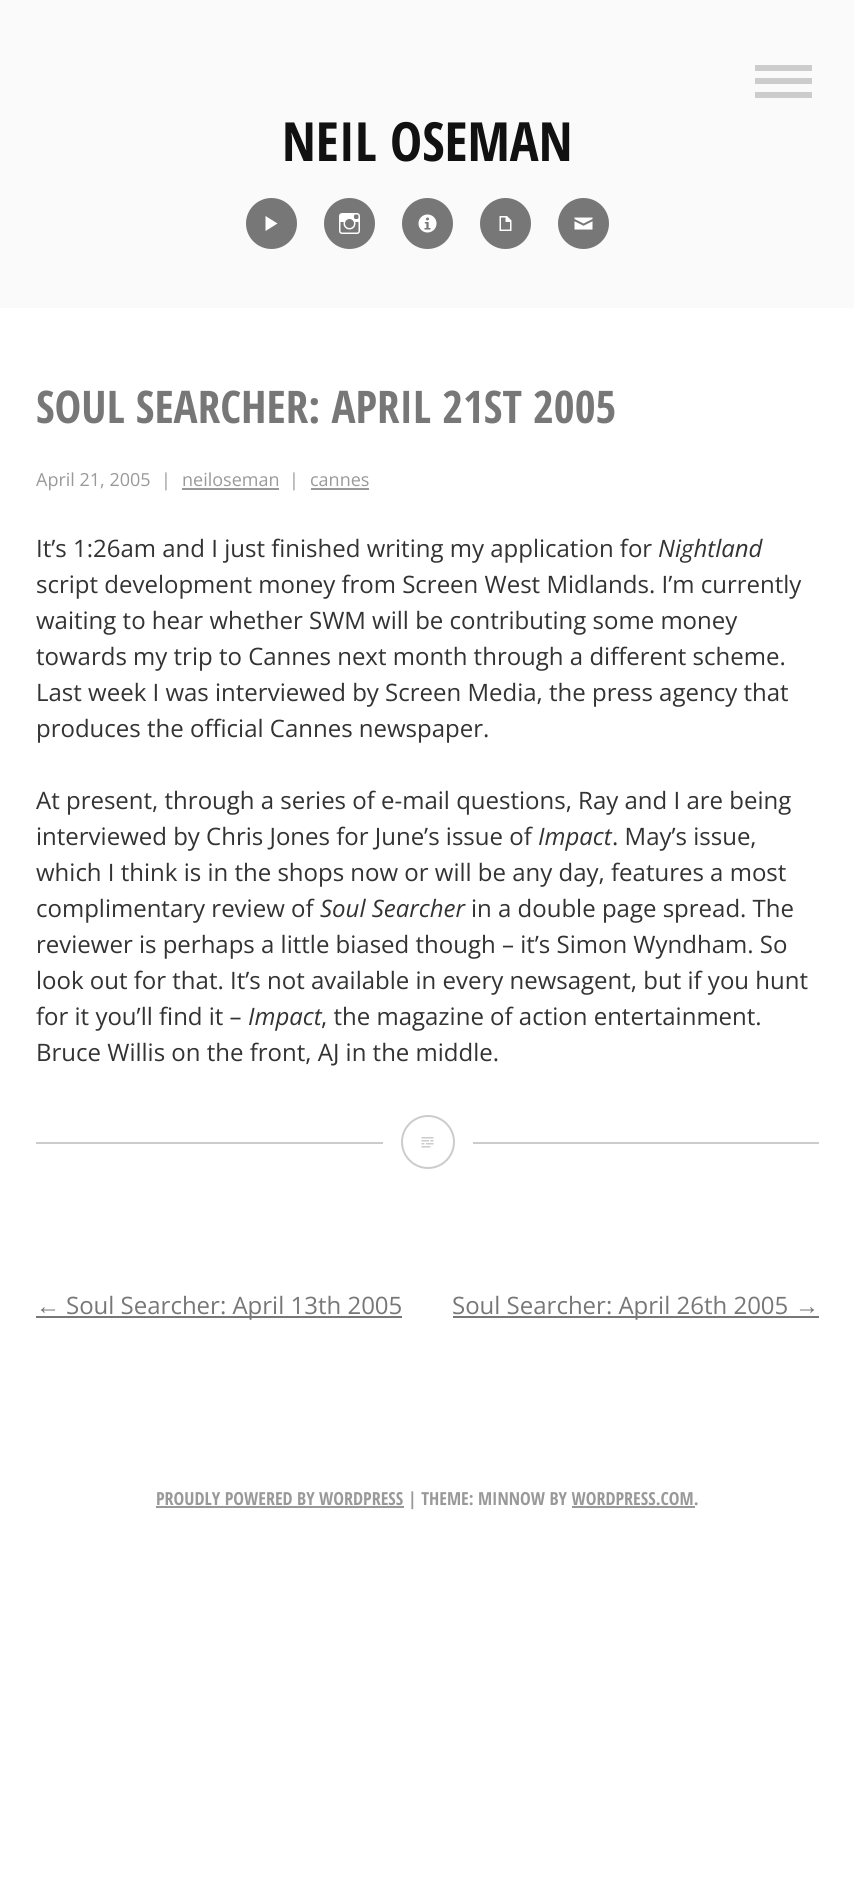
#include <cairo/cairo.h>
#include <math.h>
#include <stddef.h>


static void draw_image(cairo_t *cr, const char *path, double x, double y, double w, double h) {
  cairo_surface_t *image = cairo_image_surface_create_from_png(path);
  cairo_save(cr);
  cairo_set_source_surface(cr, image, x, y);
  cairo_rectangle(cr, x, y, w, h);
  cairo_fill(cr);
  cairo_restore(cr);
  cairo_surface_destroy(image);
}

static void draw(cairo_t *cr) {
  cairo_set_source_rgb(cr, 1, 1, 1);
  cairo_paint(cr);
  cairo_set_source_rgb(cr, 250 / 255.0, 250 / 255.0, 250 / 255.0);
  cairo_rectangle(cr, 0, 0, 854, 308);
  cairo_fill(cr);
  cairo_set_source_rgb(cr, 204 / 255.0, 204 / 255.0, 204 / 255.0);
  cairo_rectangle(cr, 755, 65, 57, 6);
  cairo_fill(cr);
  cairo_rectangle(cr, 755, 78, 57, 6);
  cairo_fill(cr);
  cairo_rectangle(cr, 755, 92, 57, 6);
  cairo_fill(cr);
  cairo_set_source_rgb(cr, 119 / 255.0, 119 / 255.0, 119 / 255.0);
  cairo_arc(cr, 271.5, 223.5, 25.5, 0, 2 * M_PI);
  cairo_fill(cr);
  cairo_set_source_rgb(cr, 1, 1, 1);
  cairo_new_path(cr);
  cairo_move_to(cr, 265.5, 216);
  cairo_line_to(cr, 277.5, 223.5);
  cairo_line_to(cr, 265.5, 231);
  cairo_close_path(cr);
  cairo_fill(cr);
  cairo_set_source_rgb(cr, 119 / 255.0, 119 / 255.0, 119 / 255.0);
  cairo_arc(cr, 349.5, 223.5, 25.5, 0, 2 * M_PI);
  cairo_fill(cr);
  draw_image(cr, "images/1.png", 339, 213, 21, 21);
  cairo_arc(cr, 427.5, 223.5, 25.5, 0, 2 * M_PI);
  cairo_fill(cr);
  draw_image(cr, "images/2.png", 418, 214, 19, 19);
  cairo_arc(cr, 505.5, 223.5, 25.5, 0, 2 * M_PI);
  cairo_fill(cr);
  draw_image(cr, "images/3.png", 499, 216, 13, 15);
  cairo_arc(cr, 583.5, 223.5, 25.5, 0, 2 * M_PI);
  cairo_fill(cr);
  draw_image(cr, "images/4.png", 574, 217, 19, 13);
  cairo_set_source_rgb(cr, 204 / 255.0, 204 / 255.0, 204 / 255.0);
  cairo_rectangle(cr, 36, 1142, 783, 2);
  cairo_fill(cr);
  cairo_set_source_rgb(cr, 153 / 255.0, 153 / 255.0, 153 / 255.0);
  cairo_rectangle(cr, 182, 488, 97, 2);
  cairo_fill(cr);
  cairo_rectangle(cr, 311, 488, 58, 2);
  cairo_fill(cr);
  cairo_set_source_rgb(cr, 1, 1, 1);
  cairo_rectangle(cr, 383, 1142, 90, 2);
  cairo_fill(cr);
  cairo_arc(cr, 428, 1142, 26, 0, 2 * M_PI);
  cairo_set_source_rgb(cr, 204 / 255.0, 204 / 255.0, 204 / 255.0);
  cairo_stroke(cr);
  draw_image(cr, "images/5.png", 421, 1137, 13, 11);
  cairo_set_source_rgb(cr, 119 / 255.0, 119 / 255.0, 119 / 255.0);
  cairo_rectangle(cr, 36, 1316, 366, 2);
  cairo_fill(cr);
  cairo_rectangle(cr, 453, 1316, 366, 2);
  cairo_fill(cr);
  cairo_set_source_rgb(cr, 153 / 255.0, 153 / 255.0, 153 / 255.0);
  cairo_rectangle(cr, 156, 1506, 248, 2);
  cairo_fill(cr);
  cairo_rectangle(cr, 572, 1506, 123, 2);
  cairo_fill(cr);
  cairo_select_font_face(cr, "Open Sans Condensed", CAIRO_FONT_SLANT_NORMAL, CAIRO_FONT_WEIGHT_BOLD);
  cairo_set_font_size(cr, 54);
  cairo_set_source_rgb(cr, 17 / 255.0, 17 / 255.0, 17 / 255.0);
  cairo_move_to(cr, 282, 161);
  cairo_show_text(cr, "NEIL OSEMAN");
  cairo_set_font_size(cr, 45);
  cairo_set_source_rgb(cr, 119 / 255.0, 119 / 255.0, 119 / 255.0);
  cairo_move_to(cr, 36, 423);
  cairo_show_text(cr, "SOUL SEARCHER: APRIL 21ST 2005");
  cairo_select_font_face(cr, "Open Sans", CAIRO_FONT_SLANT_NORMAL, CAIRO_FONT_WEIGHT_NORMAL);
  cairo_set_font_size(cr, 18);
  cairo_set_source_rgb(cr, 153 / 255.0, 153 / 255.0, 153 / 255.0);
  cairo_move_to(cr, 36, 486);
  cairo_show_text(cr, "April 21, 2005");
  cairo_move_to(cr, 161, 486);
  cairo_show_text(cr, "|");
  cairo_move_to(cr, 182, 486);
  cairo_show_text(cr, "neiloseman");
  cairo_move_to(cr, 289, 486);
  cairo_show_text(cr, "|");
  cairo_move_to(cr, 310, 486);
  cairo_show_text(cr, "cannes");
  cairo_set_font_size(cr, 24);
  cairo_set_source_rgb(cr, 51 / 255.0, 51 / 255.0, 51 / 255.0);
  cairo_move_to(cr, 36, 557);
  cairo_show_text(cr, "It’s 1:26am and I just finished writing my application for");
  cairo_select_font_face(cr, "Open Sans", CAIRO_FONT_SLANT_ITALIC, CAIRO_FONT_WEIGHT_NORMAL);
  cairo_move_to(cr, 658, 557);
  cairo_show_text(cr, "Nightland");
  cairo_select_font_face(cr, "Open Sans", CAIRO_FONT_SLANT_NORMAL, CAIRO_FONT_WEIGHT_NORMAL);
  cairo_move_to(cr, 36, 593);
  cairo_show_text(cr, "script development money from Screen West Midlands. I’m currently");
  cairo_move_to(cr, 36, 629);
  cairo_show_text(cr, "waiting to hear whether SWM will be contributing some money");
  cairo_move_to(cr, 36, 665);
  cairo_show_text(cr, "towards my trip to Cannes next month through a different scheme.");
  cairo_move_to(cr, 36, 701);
  cairo_show_text(cr, "Last week I was interviewed by Screen Media, the press agency that");
  cairo_move_to(cr, 36, 737);
  cairo_show_text(cr, "produces the official Cannes newspaper.");
  cairo_move_to(cr, 36, 809);
  cairo_show_text(cr, "At present, through a series of e-mail questions, Ray and I are being");
  cairo_move_to(cr, 36, 845);
  cairo_show_text(cr, "interviewed by Chris Jones for June’s issue of");
  cairo_select_font_face(cr, "Open Sans", CAIRO_FONT_SLANT_ITALIC, CAIRO_FONT_WEIGHT_NORMAL);
  cairo_move_to(cr, 538, 845);
  cairo_show_text(cr, "Impact");
  cairo_select_font_face(cr, "Open Sans", CAIRO_FONT_SLANT_NORMAL, CAIRO_FONT_WEIGHT_NORMAL);
  cairo_move_to(cr, 612, 845);
  cairo_show_text(cr, ". May’s issue,");
  cairo_move_to(cr, 36, 881);
  cairo_show_text(cr, "which I think is in the shops now or will be any day, features a most");
  cairo_move_to(cr, 36, 917);
  cairo_show_text(cr, "complimentary review of");
  cairo_select_font_face(cr, "Open Sans", CAIRO_FONT_SLANT_ITALIC, CAIRO_FONT_WEIGHT_NORMAL);
  cairo_move_to(cr, 320, 917);
  cairo_show_text(cr, "Soul Searcher");
  cairo_select_font_face(cr, "Open Sans", CAIRO_FONT_SLANT_NORMAL, CAIRO_FONT_WEIGHT_NORMAL);
  cairo_move_to(cr, 471, 917);
  cairo_show_text(cr, "in a double page spread. The");
  cairo_move_to(cr, 36, 953);
  cairo_show_text(cr, "reviewer is perhaps a little biased though – it’s Simon Wyndham. So");
  cairo_move_to(cr, 36, 989);
  cairo_show_text(cr, "look out for that. It’s not available in every newsagent, but if you hunt");
  cairo_move_to(cr, 36, 1025);
  cairo_show_text(cr, "for it you’ll find it –");
  cairo_select_font_face(cr, "Open Sans", CAIRO_FONT_SLANT_ITALIC, CAIRO_FONT_WEIGHT_NORMAL);
  cairo_move_to(cr, 248, 1025);
  cairo_show_text(cr, "Impact");
  cairo_select_font_face(cr, "Open Sans", CAIRO_FONT_SLANT_NORMAL, CAIRO_FONT_WEIGHT_NORMAL);
  cairo_move_to(cr, 321, 1025);
  cairo_show_text(cr, ", the magazine of action entertainment.");
  cairo_move_to(cr, 36, 1061);
  cairo_show_text(cr, "Bruce Willis on the front, AJ in the middle.");
  cairo_select_font_face(cr, "Liberation Sans", CAIRO_FONT_SLANT_NORMAL, CAIRO_FONT_WEIGHT_NORMAL);
  cairo_set_source_rgb(cr, 119 / 255.0, 119 / 255.0, 119 / 255.0);
  cairo_move_to(cr, 36, 1314);
  cairo_show_text(cr, "←");
  cairo_select_font_face(cr, "Open Sans", CAIRO_FONT_SLANT_NORMAL, CAIRO_FONT_WEIGHT_NORMAL);
  cairo_move_to(cr, 66, 1314);
  cairo_show_text(cr, "Soul Searcher: April 13th 2005");
  cairo_move_to(cr, 452, 1314);
  cairo_show_text(cr, "Soul Searcher: April 26th 2005");
  cairo_select_font_face(cr, "Liberation Sans", CAIRO_FONT_SLANT_NORMAL, CAIRO_FONT_WEIGHT_NORMAL);
  cairo_move_to(cr, 795, 1314);
  cairo_show_text(cr, "→");
  cairo_select_font_face(cr, "Open Sans Condensed", CAIRO_FONT_SLANT_NORMAL, CAIRO_FONT_WEIGHT_BOLD);
  cairo_set_font_size(cr, 18);
  cairo_set_source_rgb(cr, 153 / 255.0, 153 / 255.0, 153 / 255.0);
  cairo_move_to(cr, 156, 1505);
  cairo_show_text(cr, "PROUDLY POWERED BY WORDPRESS | THEME: MINNOW BY WORDPRESS.COM.");
}

int main(void) {
  cairo_surface_t *surface = cairo_image_surface_create(CAIRO_FORMAT_RGB24, 854, 1899);
  cairo_t *cr = cairo_create(surface);
  cairo_font_options_t *options = cairo_font_options_create();
  cairo_font_options_set_hint_metrics(options, CAIRO_HINT_METRICS_OFF);
  cairo_font_options_set_hint_style(options, CAIRO_HINT_STYLE_NONE);
  cairo_set_font_options(cr, options);
  cairo_set_miter_limit(cr, 4);
  draw(cr);
  cairo_surface_write_to_png(surface, "out.png");
  cairo_font_options_destroy(options);
  cairo_destroy(cr);
  cairo_surface_destroy(surface);
  return 0;
}
